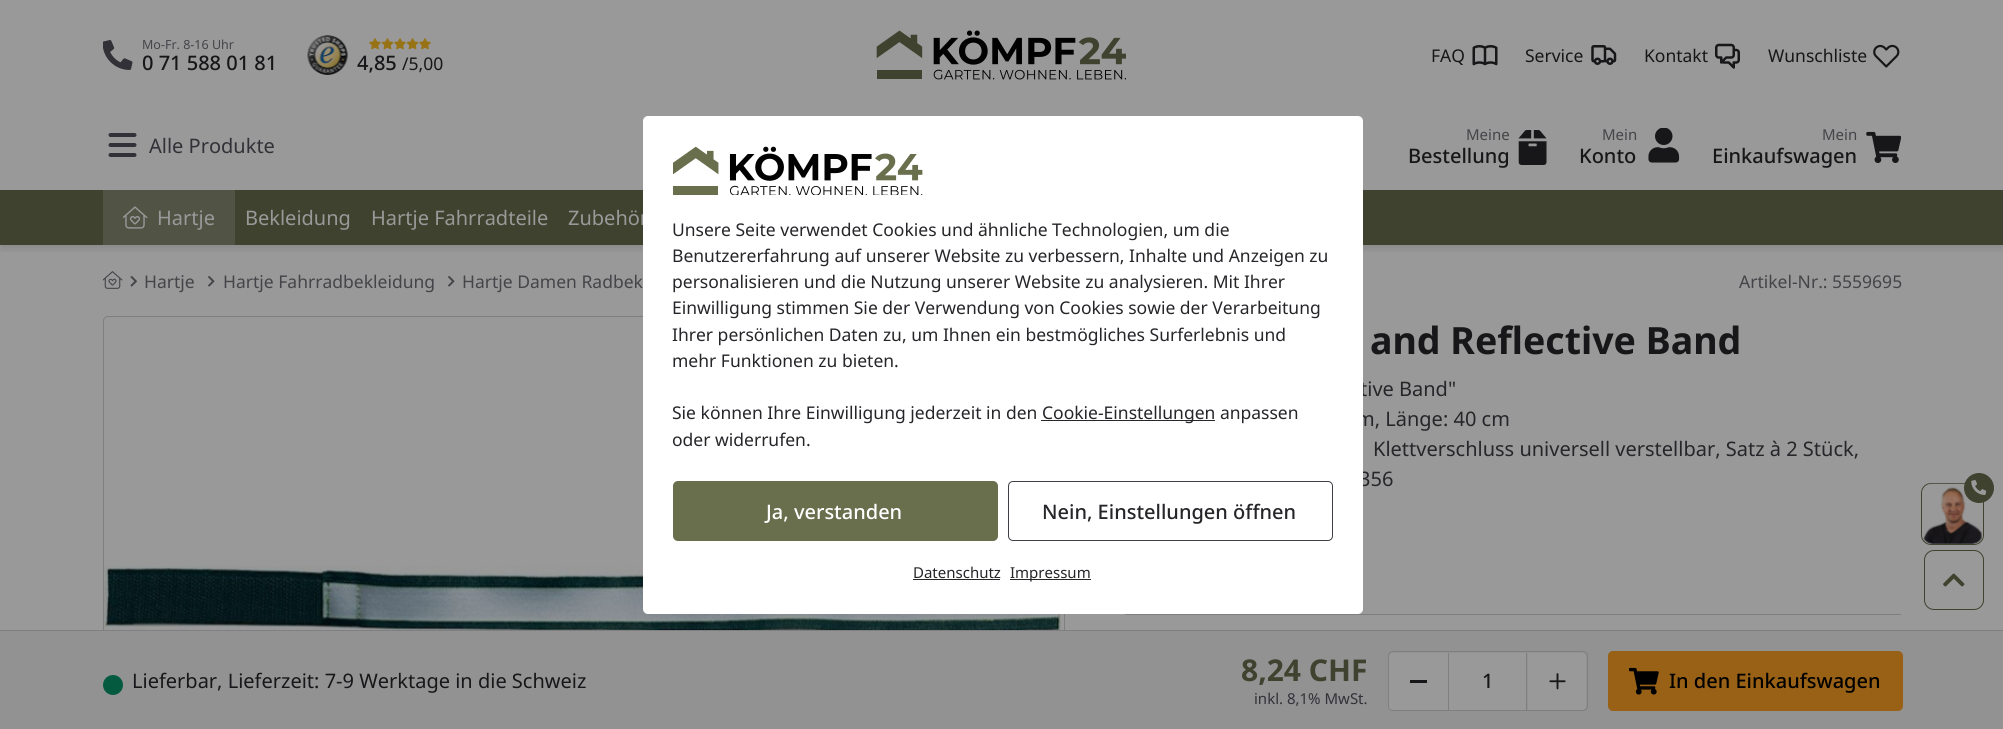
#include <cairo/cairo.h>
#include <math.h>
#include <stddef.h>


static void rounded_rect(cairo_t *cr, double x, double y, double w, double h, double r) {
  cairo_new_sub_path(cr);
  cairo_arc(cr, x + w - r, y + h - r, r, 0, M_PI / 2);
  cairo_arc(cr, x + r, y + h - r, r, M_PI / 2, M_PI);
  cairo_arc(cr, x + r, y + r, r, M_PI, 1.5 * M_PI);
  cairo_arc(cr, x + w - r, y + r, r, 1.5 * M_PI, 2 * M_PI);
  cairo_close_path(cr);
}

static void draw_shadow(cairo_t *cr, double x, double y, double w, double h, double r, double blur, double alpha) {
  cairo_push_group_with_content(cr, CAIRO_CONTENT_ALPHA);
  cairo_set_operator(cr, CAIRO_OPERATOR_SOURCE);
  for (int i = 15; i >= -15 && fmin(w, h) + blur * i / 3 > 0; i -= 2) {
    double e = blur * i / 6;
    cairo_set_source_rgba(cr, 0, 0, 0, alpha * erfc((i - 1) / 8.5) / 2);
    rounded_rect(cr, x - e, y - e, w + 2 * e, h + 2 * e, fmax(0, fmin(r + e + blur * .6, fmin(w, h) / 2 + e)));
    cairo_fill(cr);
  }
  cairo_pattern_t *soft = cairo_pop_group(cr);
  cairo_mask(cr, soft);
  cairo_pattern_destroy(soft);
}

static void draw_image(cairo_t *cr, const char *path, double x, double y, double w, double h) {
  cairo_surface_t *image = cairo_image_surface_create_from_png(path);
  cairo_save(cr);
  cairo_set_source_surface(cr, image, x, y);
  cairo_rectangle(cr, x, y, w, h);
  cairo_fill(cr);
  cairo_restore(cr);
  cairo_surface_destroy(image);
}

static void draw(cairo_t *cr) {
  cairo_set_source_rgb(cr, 153 / 255.0, 153 / 255.0, 153 / 255.0);
  cairo_paint(cr);
  cairo_save(cr);
  cairo_rectangle(cr, 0, 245, 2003, 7);
  cairo_clip(cr);
  cairo_set_source_rgb(cr, 0, 0, 0);
  draw_shadow(cr, 1, 6, 2002, 243, 0, 4, 0.1);
  cairo_restore(cr);
  draw_image(cr, "images/1.png", 103, 40, 30, 30);
  draw_image(cr, "images/2.png", 307, 35, 41, 40);
  draw_image(cr, "images/3.png", 369, 38, 12, 12);
  draw_image(cr, "images/4.png", 381, 38, 13, 12);
  draw_image(cr, "images/3.png", 394, 38, 12, 12);
  draw_image(cr, "images/4.png", 406, 38, 13, 12);
  draw_image(cr, "images/3.png", 419, 38, 12, 12);
  draw_image(cr, "images/5.png", 876, 30, 250, 50);
  draw_image(cr, "images/6.png", 1472, 45, 26, 21);
  draw_image(cr, "images/7.png", 1591, 45, 26, 20);
  draw_image(cr, "images/8.png", 1715, 43, 25, 26);
  draw_image(cr, "images/9.png", 1873, 44, 27, 24);
  draw_image(cr, "images/10.png", 108, 133, 29, 24);
  draw_image(cr, "images/11.png", 1518, 130, 29, 35);
  draw_image(cr, "images/12.png", 1648, 128, 32, 35);
  draw_image(cr, "images/13.png", 1866, 131, 35, 32);
  cairo_set_source_rgb(cr, 63 / 255.0, 66 / 255.0, 46 / 255.0);
  cairo_rectangle(cr, 0, 190, 2003, 55);
  cairo_fill(cr);
  cairo_set_source_rgb(cr, 81 / 255.0, 83 / 255.0, 68 / 255.0);
  cairo_rectangle(cr, 103, 190, 132, 55);
  cairo_fill(cr);
  draw_image(cr, "images/14.png", 123, 206, 25, 23);
  draw_image(cr, "images/16.png", 103, 271, 20, 18);
  draw_image(cr, "images/17.png", 130, 276, 7, 11);
  draw_image(cr, "images/18.png", 208, 276, 7, 11);
  draw_image(cr, "images/18.png", 448, 276, 7, 11);
  rounded_rect(cr, 103.5, 316.5, 961, 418, 4.5);
  cairo_set_source_rgb(cr, 127 / 255.0, 127 / 255.0, 130 / 255.0);
  cairo_set_line_width(cr, 1);
  cairo_stroke(cr);
  draw_image(cr, "images/19.png", 104, 566, 959, 64);
  cairo_rectangle(cr, 1125, 614, 776, 1);
  cairo_fill(cr);
  cairo_set_source_rgb(cr, 146 / 255.0, 146 / 255.0, 147 / 255.0);
  cairo_rectangle(cr, 0, 631, 2003, 98);
  cairo_fill(cr);
  cairo_set_source_rgb(cr, 127 / 255.0, 127 / 255.0, 130 / 255.0);
  cairo_rectangle(cr, 0, 630, 2003, 1);
  cairo_fill(cr);
  cairo_set_source_rgb(cr, 3 / 255.0, 90 / 255.0, 63 / 255.0);
  cairo_arc(cr, 113, 685, 10, 0, 2 * M_PI);
  cairo_fill(cr);
  rounded_rect(cr, 1388.5, 651.5, 199, 59, 4.5);
  cairo_set_source_rgb(cr, 127 / 255.0, 127 / 255.0, 130 / 255.0);
  cairo_stroke(cr);
  cairo_set_source_rgb(cr, 153 / 255.0, 153 / 255.0, 153 / 255.0);
  cairo_new_path(cr);
  cairo_move_to(cr, 1393, 653);
  cairo_line_to(cr, 1448, 653);
  cairo_line_to(cr, 1448, 710);
  cairo_line_to(cr, 1393, 710);
  cairo_curve_to(cr, 1391, 710, 1389, 708, 1389, 706);
  cairo_line_to(cr, 1389, 657);
  cairo_curve_to(cr, 1389, 655, 1391, 653, 1393, 653);
  cairo_close_path(cr);
  cairo_fill(cr);
  cairo_set_source_rgb(cr, 127 / 255.0, 127 / 255.0, 130 / 255.0);
  cairo_rectangle(cr, 1448, 653, 1, 57);
  cairo_fill(cr);
  cairo_set_source_rgb(cr, 23 / 255.0, 23 / 255.0, 25 / 255.0);
  cairo_rectangle(cr, 1410, 680, 17, 3);
  cairo_fill(cr);
  cairo_set_source_rgb(cr, 153 / 255.0, 153 / 255.0, 153 / 255.0);
  cairo_rectangle(cr, 1449, 653, 77, 57);
  cairo_fill(cr);
  cairo_new_path(cr);
  cairo_move_to(cr, 1528, 653);
  cairo_line_to(cr, 1582, 653);
  cairo_curve_to(cr, 1584, 653, 1586, 655, 1586, 657);
  cairo_line_to(cr, 1586, 706);
  cairo_curve_to(cr, 1586, 708, 1584, 710, 1582, 710);
  cairo_line_to(cr, 1528, 710);
  cairo_close_path(cr);
  cairo_fill(cr);
  cairo_set_source_rgb(cr, 127 / 255.0, 127 / 255.0, 130 / 255.0);
  cairo_rectangle(cr, 1526, 653, 1, 57);
  cairo_fill(cr);
  draw_image(cr, "images/20.png", 1549, 673, 17, 17);
  cairo_set_source_rgb(cr, 152 / 255.0, 97 / 255.0, 22 / 255.0);
  rounded_rect(cr, 1608, 651, 295, 60, 5);
  cairo_fill(cr);
  draw_image(cr, "images/21.png", 1629, 667, 30, 28);
  rounded_rect(cr, 1921.5, 483.5, 62, 61, 9.5);
  cairo_set_source_rgb(cr, 63 / 255.0, 66 / 255.0, 46 / 255.0);
  cairo_stroke(cr);
  draw_image(cr, "images/23.png", 1922, 483, 61, 61);
  cairo_arc(cr, 1979, 488, 15, 0, 2 * M_PI);
  cairo_fill(cr);
  draw_image(cr, "images/22.png", 1971, 480, 15, 15);
  rounded_rect(cr, 1924.5, 550.5, 59, 59, 9.5);
  cairo_stroke(cr);
  draw_image(cr, "images/24.png", 1943, 573, 22, 14);
  cairo_select_font_face(cr, "Noto Sans", CAIRO_FONT_SLANT_NORMAL, CAIRO_FONT_WEIGHT_NORMAL);
  cairo_set_font_size(cr, 12.5);
  cairo_set_source_rgb(cr, 68 / 255.0, 68 / 255.0, 73 / 255.0);
  cairo_move_to(cr, 142, 49);
  cairo_show_text(cr, "Mo-Fr. 8-16 Uhr");
  cairo_select_font_face(cr, "Noto Sans Medium", CAIRO_FONT_SLANT_NORMAL, CAIRO_FONT_WEIGHT_NORMAL);
  cairo_set_font_size(cr, 20);
  cairo_set_source_rgb(cr, 23 / 255.0, 23 / 255.0, 25 / 255.0);
  cairo_move_to(cr, 142, 70);
  cairo_show_text(cr, "0 71 588 01 81");
  cairo_move_to(cr, 357, 70);
  cairo_show_text(cr, "4,85");
  cairo_select_font_face(cr, "Noto Sans", CAIRO_FONT_SLANT_NORMAL, CAIRO_FONT_WEIGHT_NORMAL);
  cairo_set_font_size(cr, 17.5);
  cairo_move_to(cr, 402, 70);
  cairo_show_text(cr, "/5,00");
  cairo_move_to(cr, 1431, 62);
  cairo_show_text(cr, "FAQ");
  cairo_move_to(cr, 1525, 62);
  cairo_show_text(cr, "Service");
  cairo_move_to(cr, 1644, 62);
  cairo_show_text(cr, "Kontakt");
  cairo_move_to(cr, 1768, 62);
  cairo_show_text(cr, "Wunschliste");
  cairo_set_font_size(cr, 20);
  cairo_set_source_rgb(cr, 49 / 255.0, 49 / 255.0, 55 / 255.0);
  cairo_move_to(cr, 149, 153);
  cairo_show_text(cr, "Alle Produkte");
  cairo_set_font_size(cr, 15);
  cairo_set_source_rgb(cr, 68 / 255.0, 68 / 255.0, 73 / 255.0);
  cairo_move_to(cr, 1466, 140);
  cairo_show_text(cr, "Meine");
  cairo_select_font_face(cr, "Noto Sans Medium", CAIRO_FONT_SLANT_NORMAL, CAIRO_FONT_WEIGHT_NORMAL);
  cairo_set_font_size(cr, 20);
  cairo_set_source_rgb(cr, 23 / 255.0, 23 / 255.0, 25 / 255.0);
  cairo_move_to(cr, 1408, 163);
  cairo_show_text(cr, "Bestellung");
  cairo_select_font_face(cr, "Noto Sans", CAIRO_FONT_SLANT_NORMAL, CAIRO_FONT_WEIGHT_NORMAL);
  cairo_set_font_size(cr, 15);
  cairo_set_source_rgb(cr, 68 / 255.0, 68 / 255.0, 73 / 255.0);
  cairo_move_to(cr, 1602, 140);
  cairo_show_text(cr, "Mein");
  cairo_select_font_face(cr, "Noto Sans Medium", CAIRO_FONT_SLANT_NORMAL, CAIRO_FONT_WEIGHT_NORMAL);
  cairo_set_font_size(cr, 20);
  cairo_set_source_rgb(cr, 23 / 255.0, 23 / 255.0, 25 / 255.0);
  cairo_move_to(cr, 1579, 163);
  cairo_show_text(cr, "Konto");
  cairo_select_font_face(cr, "Noto Sans", CAIRO_FONT_SLANT_NORMAL, CAIRO_FONT_WEIGHT_NORMAL);
  cairo_set_font_size(cr, 15);
  cairo_set_source_rgb(cr, 68 / 255.0, 68 / 255.0, 73 / 255.0);
  cairo_move_to(cr, 1822, 140);
  cairo_show_text(cr, "Mein");
  cairo_select_font_face(cr, "Noto Sans Medium", CAIRO_FONT_SLANT_NORMAL, CAIRO_FONT_WEIGHT_NORMAL);
  cairo_set_font_size(cr, 20);
  cairo_set_source_rgb(cr, 23 / 255.0, 23 / 255.0, 25 / 255.0);
  cairo_move_to(cr, 1712, 163);
  cairo_show_text(cr, "Einkaufswagen");
  cairo_select_font_face(cr, "Noto Sans", CAIRO_FONT_SLANT_NORMAL, CAIRO_FONT_WEIGHT_NORMAL);
  cairo_set_source_rgb(cr, 153 / 255.0, 153 / 255.0, 153 / 255.0);
  cairo_move_to(cr, 157, 225);
  cairo_show_text(cr, "Hartje");
  cairo_move_to(cr, 245, 225);
  cairo_show_text(cr, "Bekleidung");
  cairo_move_to(cr, 371, 225);
  cairo_show_text(cr, "Hartje Fahrradteile");
  cairo_move_to(cr, 568, 225);
  cairo_show_text(cr, "Zubehör");
  cairo_set_font_size(cr, 17.5);
  cairo_set_source_rgb(cr, 68 / 255.0, 68 / 255.0, 73 / 255.0);
  cairo_move_to(cr, 144, 288);
  cairo_show_text(cr, "Hartje");
  cairo_move_to(cr, 223, 288);
  cairo_show_text(cr, "Hartje Fahrradbekleidung");
  cairo_move_to(cr, 462, 288);
  cairo_show_text(cr, "Hartje Damen Radbek");
  cairo_move_to(cr, 1739, 288);
  cairo_show_text(cr, "Artikel-Nr.: 5559695");
  cairo_select_font_face(cr, "Noto Sans", CAIRO_FONT_SLANT_NORMAL, CAIRO_FONT_WEIGHT_BOLD);
  cairo_set_font_size(cr, 37.5);
  cairo_set_source_rgb(cr, 23 / 255.0, 23 / 255.0, 25 / 255.0);
  cairo_move_to(cr, 1370, 354);
  cairo_show_text(cr, "and Reflective Band");
  cairo_select_font_face(cr, "Noto Sans", CAIRO_FONT_SLANT_NORMAL, CAIRO_FONT_WEIGHT_NORMAL);
  cairo_set_font_size(cr, 20);
  cairo_set_source_rgb(cr, 38 / 255.0, 38 / 255.0, 42 / 255.0);
  cairo_move_to(cr, 1360, 396);
  cairo_show_text(cr, "tive Band\"");
  cairo_move_to(cr, 1356, 426);
  cairo_show_text(cr, "m, Länge: 40 cm");
  cairo_move_to(cr, 1373, 456);
  cairo_show_text(cr, "Klettverschluss universell verstellbar, Satz à 2 Stück,");
  cairo_move_to(cr, 1359, 486);
  cairo_show_text(cr, "356");
  cairo_set_source_rgb(cr, 1, 1, 1);
  rounded_rect(cr, 643, 116, 720, 498, 5);
  cairo_fill(cr);
  cairo_set_source_rgb(cr, 39 / 255.0, 39 / 255.0, 42 / 255.0);
  cairo_rectangle(cr, 1010, 579, 81, 1);
  cairo_fill(cr);
  cairo_set_font_size(cr, 15);
  cairo_set_source_rgb(cr, 38 / 255.0, 38 / 255.0, 42 / 255.0);
  cairo_move_to(cr, 1010, 578);
  cairo_show_text(cr, "Impressum");
  cairo_move_to(cr, 913, 578);
  cairo_show_text(cr, "Datenschutz");
  cairo_set_source_rgb(cr, 39 / 255.0, 39 / 255.0, 42 / 255.0);
  cairo_rectangle(cr, 913, 579, 87, 1);
  cairo_fill(cr);
  rounded_rect(cr, 1008.5, 481.5, 324, 59, 4.5);
  cairo_set_source_rgb(cr, 63 / 255.0, 63 / 255.0, 70 / 255.0);
  cairo_stroke(cr);
  cairo_select_font_face(cr, "Noto Sans Medium", CAIRO_FONT_SLANT_NORMAL, CAIRO_FONT_WEIGHT_NORMAL);
  cairo_set_font_size(cr, 20);
  cairo_set_source_rgb(cr, 38 / 255.0, 38 / 255.0, 42 / 255.0);
  cairo_move_to(cr, 1042, 519);
  cairo_show_text(cr, "Nein, Einstellungen öffnen");
  cairo_set_source_rgb(cr, 105 / 255.0, 110 / 255.0, 77 / 255.0);
  rounded_rect(cr, 673, 481, 325, 60, 5);
  cairo_fill(cr);
  cairo_set_source_rgb(cr, 1, 1, 1);
  cairo_move_to(cr, 766, 519);
  cairo_show_text(cr, "Ja, verstanden");
  cairo_select_font_face(cr, "Noto Sans", CAIRO_FONT_SLANT_NORMAL, CAIRO_FONT_WEIGHT_NORMAL);
  cairo_set_font_size(cr, 17.5);
  cairo_set_source_rgb(cr, 38 / 255.0, 38 / 255.0, 42 / 255.0);
  cairo_move_to(cr, 672, 446);
  cairo_show_text(cr, "oder widerrufen.");
  cairo_set_source_rgb(cr, 39 / 255.0, 39 / 255.0, 42 / 255.0);
  cairo_rectangle(cr, 1041, 420, 174, 1);
  cairo_fill(cr);
  cairo_set_source_rgb(cr, 38 / 255.0, 38 / 255.0, 42 / 255.0);
  cairo_move_to(cr, 1042, 419);
  cairo_show_text(cr, "Cookie-Einstellungen anpassen");
  cairo_move_to(cr, 672, 419);
  cairo_show_text(cr, "Sie können Ihre Einwilligung jederzeit in den");
  cairo_move_to(cr, 672, 367);
  cairo_show_text(cr, "mehr Funktionen zu bieten.");
  cairo_move_to(cr, 672, 341);
  cairo_show_text(cr, "Ihrer persönlichen Daten zu, um Ihnen ein bestmögliches Surferlebnis und");
  cairo_move_to(cr, 672, 314);
  cairo_show_text(cr, "Einwilligung stimmen Sie der Verwendung von Cookies sowie der Verarbeitung");
  cairo_move_to(cr, 672, 288);
  cairo_show_text(cr, "personalisieren und die Nutzung unserer Website zu analysieren. Mit Ihrer");
  cairo_move_to(cr, 672, 262);
  cairo_show_text(cr, "Benutzererfahrung auf unserer Website zu verbessern, Inhalte und Anzeigen zu");
  cairo_move_to(cr, 672, 236);
  cairo_show_text(cr, "Unsere Seite verwendet Cookies und ähnliche Technologien, um die");
  draw_image(cr, "images/15.png", 673, 146, 250, 49);
  cairo_set_font_size(cr, 20);
  cairo_set_source_rgb(cr, 23 / 255.0, 23 / 255.0, 25 / 255.0);
  cairo_move_to(cr, 132, 688);
  cairo_show_text(cr, "Lieferbar, Lieferzeit: 7-9 Werktage in die Schweiz");
  cairo_select_font_face(cr, "Noto Sans", CAIRO_FONT_SLANT_NORMAL, CAIRO_FONT_WEIGHT_BOLD);
  cairo_set_font_size(cr, 30);
  cairo_set_source_rgb(cr, 63 / 255.0, 66 / 255.0, 46 / 255.0);
  cairo_move_to(cr, 1241, 681);
  cairo_show_text(cr, "8,24 CHF");
  cairo_select_font_face(cr, "Noto Sans", CAIRO_FONT_SLANT_NORMAL, CAIRO_FONT_WEIGHT_NORMAL);
  cairo_set_font_size(cr, 15);
  cairo_set_source_rgb(cr, 49 / 255.0, 49 / 255.0, 55 / 255.0);
  cairo_move_to(cr, 1254, 704);
  cairo_show_text(cr, "inkl. 8,1% MwSt.");
  cairo_select_font_face(cr, "Noto Sans Medium", CAIRO_FONT_SLANT_NORMAL, CAIRO_FONT_WEIGHT_NORMAL);
  cairo_set_font_size(cr, 20);
  cairo_set_source_rgb(cr, 23 / 255.0, 23 / 255.0, 25 / 255.0);
  cairo_move_to(cr, 1482, 688);
  cairo_show_text(cr, "1");
  cairo_set_source_rgb(cr, 0, 0, 0);
  cairo_move_to(cr, 1669, 688);
  cairo_show_text(cr, "In den Einkaufswagen");
}

int main(void) {
  cairo_surface_t *surface = cairo_image_surface_create(CAIRO_FORMAT_RGB24, 2003, 729);
  cairo_t *cr = cairo_create(surface);
  cairo_font_options_t *options = cairo_font_options_create();
  cairo_font_options_set_hint_metrics(options, CAIRO_HINT_METRICS_OFF);
  cairo_font_options_set_hint_style(options, CAIRO_HINT_STYLE_NONE);
  cairo_set_font_options(cr, options);
  cairo_set_miter_limit(cr, 4);
  draw(cr);
  cairo_surface_write_to_png(surface, "out.png");
  cairo_font_options_destroy(options);
  cairo_destroy(cr);
  cairo_surface_destroy(surface);
  return 0;
}
